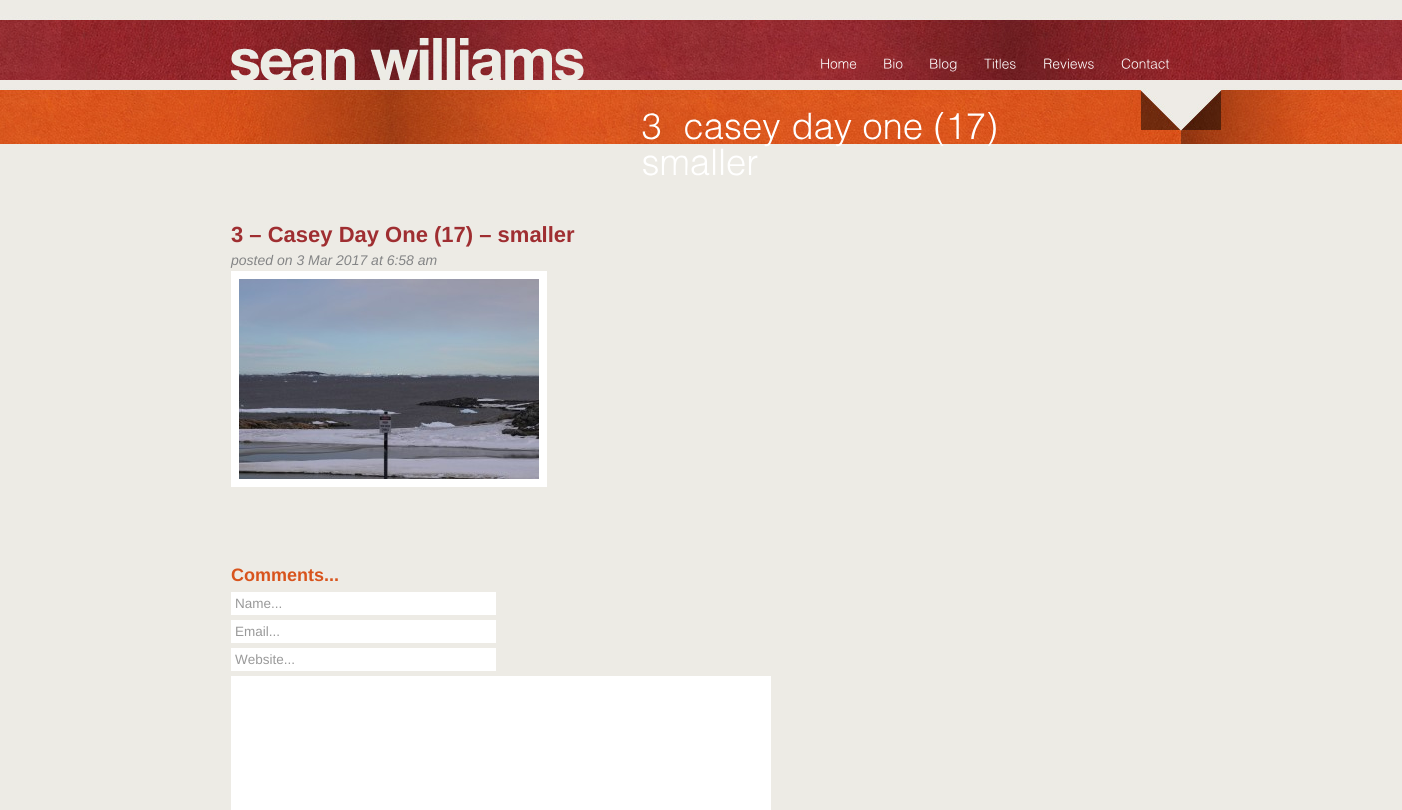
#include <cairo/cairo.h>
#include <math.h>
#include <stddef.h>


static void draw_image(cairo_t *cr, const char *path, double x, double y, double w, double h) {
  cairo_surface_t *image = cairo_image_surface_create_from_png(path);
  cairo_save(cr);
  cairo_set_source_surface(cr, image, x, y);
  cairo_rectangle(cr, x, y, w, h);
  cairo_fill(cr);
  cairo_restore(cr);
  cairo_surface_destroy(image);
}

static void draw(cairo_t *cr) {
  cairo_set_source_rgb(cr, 237 / 255.0, 235 / 255.0, 229 / 255.0);
  cairo_paint(cr);
  draw_image(cr, "images/1.png", 0, 16, 1402, 128);
  draw_image(cr, "images/2.png", 61, 16, 1280, 128);
  draw_image(cr, "images/3.png", 231, 38, 353, 42);
  draw_image(cr, "images/4.png", 821, 58, 36, 11);
  draw_image(cr, "images/5.png", 884, 58, 19, 11);
  draw_image(cr, "images/6.png", 930, 58, 27, 14);
  draw_image(cr, "images/7.png", 984, 58, 32, 11);
  draw_image(cr, "images/8.png", 1044, 58, 50, 11);
  draw_image(cr, "images/9.png", 1121, 58, 48, 11);
  draw_image(cr, "images/10.png", 642, 113, 19, 27);
  draw_image(cr, "images/11.png", 685, 119, 95, 28);
  draw_image(cr, "images/12.png", 793, 112, 59, 35);
  draw_image(cr, "images/13.png", 863, 119, 59, 21);
  draw_image(cr, "images/14.png", 935, 112, 61, 34);
  draw_image(cr, "images/15.png", 643, 148, 115, 28);
  cairo_rectangle(cr, 235, 275, 308, 208);
  cairo_set_source_rgb(cr, 1, 1, 1);
  cairo_set_line_width(cr, 8);
  cairo_stroke(cr);
  draw_image(cr, "images/16.png", 239, 279, 300, 200);
  cairo_rectangle(cr, 231, 592, 265, 23);
  cairo_fill(cr);
  cairo_rectangle(cr, 231, 620, 265, 23);
  cairo_fill(cr);
  cairo_rectangle(cr, 231, 648, 265, 23);
  cairo_fill(cr);
  cairo_rectangle(cr, 231, 676, 540, 134);
  cairo_fill(cr);
  cairo_select_font_face(cr, "Liberation Sans", CAIRO_FONT_SLANT_NORMAL, CAIRO_FONT_WEIGHT_BOLD);
  cairo_set_font_size(cr, 22);
  cairo_set_source_rgb(cr, 159 / 255.0, 46 / 255.0, 49 / 255.0);
  cairo_move_to(cr, 231, 242);
  cairo_show_text(cr, "3 – Casey Day One (17) – smaller");
  cairo_select_font_face(cr, "Liberation Sans", CAIRO_FONT_SLANT_ITALIC, CAIRO_FONT_WEIGHT_NORMAL);
  cairo_set_font_size(cr, 14);
  cairo_set_source_rgb(cr, 132 / 255.0, 133 / 255.0, 134 / 255.0);
  cairo_move_to(cr, 231, 265);
  cairo_show_text(cr, "posted on 3 Mar 2017 at 6:58 am");
  cairo_select_font_face(cr, "Liberation Sans", CAIRO_FONT_SLANT_NORMAL, CAIRO_FONT_WEIGHT_BOLD);
  cairo_set_font_size(cr, 18);
  cairo_set_source_rgb(cr, 216 / 255.0, 84 / 255.0, 29 / 255.0);
  cairo_move_to(cr, 231, 581);
  cairo_show_text(cr, "Comments...");
  cairo_select_font_face(cr, "Liberation Sans", CAIRO_FONT_SLANT_NORMAL, CAIRO_FONT_WEIGHT_NORMAL);
  cairo_set_font_size(cr, 13.5);
  cairo_set_source_rgb(cr, 153 / 255.0, 153 / 255.0, 153 / 255.0);
  cairo_move_to(cr, 235, 608);
  cairo_show_text(cr, "Name...");
  cairo_move_to(cr, 235, 636);
  cairo_show_text(cr, "Email...");
  cairo_move_to(cr, 235, 664);
  cairo_show_text(cr, "Website...");
}

int main(void) {
  cairo_surface_t *surface = cairo_image_surface_create(CAIRO_FORMAT_RGB24, 1402, 810);
  cairo_t *cr = cairo_create(surface);
  cairo_font_options_t *options = cairo_font_options_create();
  cairo_font_options_set_hint_metrics(options, CAIRO_HINT_METRICS_OFF);
  cairo_font_options_set_hint_style(options, CAIRO_HINT_STYLE_NONE);
  cairo_set_font_options(cr, options);
  cairo_set_miter_limit(cr, 4);
  draw(cr);
  cairo_surface_write_to_png(surface, "out.png");
  cairo_font_options_destroy(options);
  cairo_destroy(cr);
  cairo_surface_destroy(surface);
  return 0;
}
